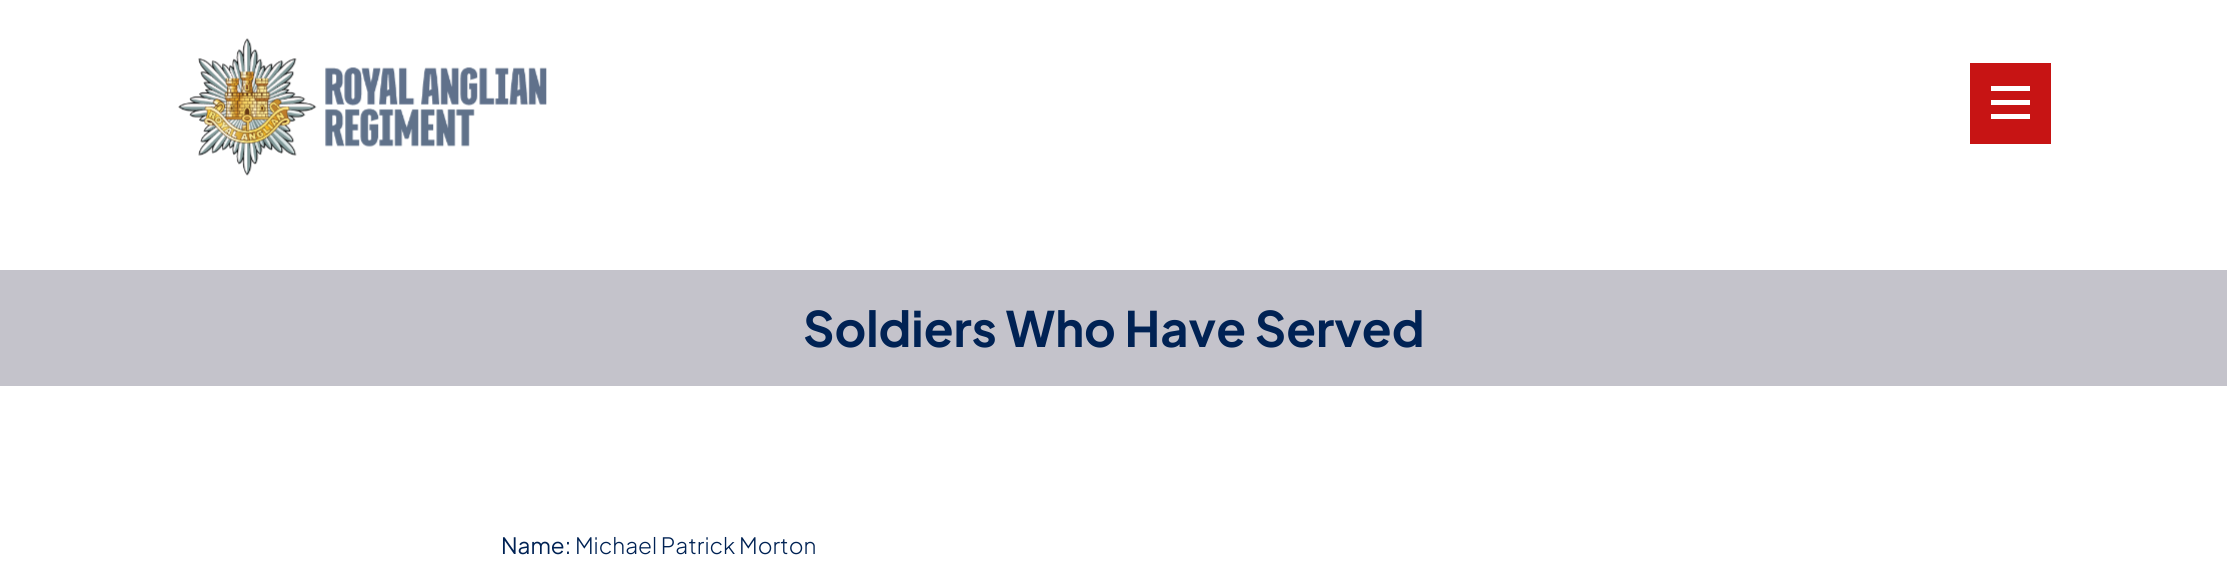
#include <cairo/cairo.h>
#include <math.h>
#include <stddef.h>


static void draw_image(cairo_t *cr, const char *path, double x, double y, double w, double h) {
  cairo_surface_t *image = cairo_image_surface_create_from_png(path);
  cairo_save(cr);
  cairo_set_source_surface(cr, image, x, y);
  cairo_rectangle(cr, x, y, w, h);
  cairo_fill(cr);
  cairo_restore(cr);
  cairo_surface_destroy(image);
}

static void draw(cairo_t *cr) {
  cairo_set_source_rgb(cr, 1, 1, 1);
  cairo_paint(cr);
  draw_image(cr, "images/1.png", 178, 38, 369, 138);
  cairo_set_source_rgb(cr, 199 / 255.0, 20 / 255.0, 20 / 255.0);
  cairo_rectangle(cr, 1970, 63, 81, 81);
  cairo_fill(cr);
  cairo_set_source_rgb(cr, 1, 1, 1);
  cairo_rectangle(cr, 1991, 86, 39, 5);
  cairo_fill(cr);
  cairo_rectangle(cr, 1991, 100, 39, 5);
  cairo_fill(cr);
  cairo_rectangle(cr, 1991, 114, 39, 5);
  cairo_fill(cr);
  cairo_set_source_rgb(cr, 196 / 255.0, 195 / 255.0, 203 / 255.0);
  cairo_rectangle(cr, 0, 270, 2227, 116);
  cairo_fill(cr);
  cairo_select_font_face(cr, "Plus Jakarta Sans", CAIRO_FONT_SLANT_NORMAL, CAIRO_FONT_WEIGHT_BOLD);
  cairo_set_font_size(cr, 48.75);
  cairo_set_source_rgb(cr, 0, 34 / 255.0, 84 / 255.0);
  cairo_move_to(cr, 803, 347);
  cairo_show_text(cr, "Soldiers Who Have Served");
  cairo_select_font_face(cr, "Plus Jakarta Sans", CAIRO_FONT_SLANT_NORMAL, CAIRO_FONT_WEIGHT_NORMAL);
  cairo_set_font_size(cr, 22.5);
  cairo_move_to(cr, 501, 554);
  cairo_show_text(cr, "Name:");
  cairo_select_font_face(cr, "Plus Jakarta Sans Light", CAIRO_FONT_SLANT_NORMAL, CAIRO_FONT_WEIGHT_NORMAL);
  cairo_move_to(cr, 575, 554);
  cairo_show_text(cr, "Michael Patrick Morton");
}

int main(void) {
  cairo_surface_t *surface = cairo_image_surface_create(CAIRO_FORMAT_RGB24, 2227, 563);
  cairo_t *cr = cairo_create(surface);
  cairo_font_options_t *options = cairo_font_options_create();
  cairo_font_options_set_hint_metrics(options, CAIRO_HINT_METRICS_OFF);
  cairo_font_options_set_hint_style(options, CAIRO_HINT_STYLE_NONE);
  cairo_set_font_options(cr, options);
  cairo_set_miter_limit(cr, 4);
  draw(cr);
  cairo_surface_write_to_png(surface, "out.png");
  cairo_font_options_destroy(options);
  cairo_destroy(cr);
  cairo_surface_destroy(surface);
  return 0;
}
